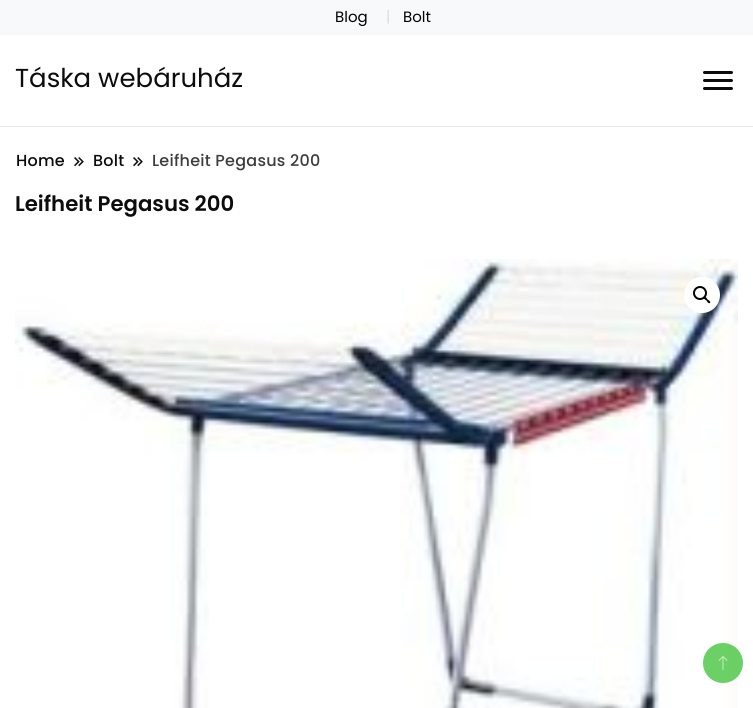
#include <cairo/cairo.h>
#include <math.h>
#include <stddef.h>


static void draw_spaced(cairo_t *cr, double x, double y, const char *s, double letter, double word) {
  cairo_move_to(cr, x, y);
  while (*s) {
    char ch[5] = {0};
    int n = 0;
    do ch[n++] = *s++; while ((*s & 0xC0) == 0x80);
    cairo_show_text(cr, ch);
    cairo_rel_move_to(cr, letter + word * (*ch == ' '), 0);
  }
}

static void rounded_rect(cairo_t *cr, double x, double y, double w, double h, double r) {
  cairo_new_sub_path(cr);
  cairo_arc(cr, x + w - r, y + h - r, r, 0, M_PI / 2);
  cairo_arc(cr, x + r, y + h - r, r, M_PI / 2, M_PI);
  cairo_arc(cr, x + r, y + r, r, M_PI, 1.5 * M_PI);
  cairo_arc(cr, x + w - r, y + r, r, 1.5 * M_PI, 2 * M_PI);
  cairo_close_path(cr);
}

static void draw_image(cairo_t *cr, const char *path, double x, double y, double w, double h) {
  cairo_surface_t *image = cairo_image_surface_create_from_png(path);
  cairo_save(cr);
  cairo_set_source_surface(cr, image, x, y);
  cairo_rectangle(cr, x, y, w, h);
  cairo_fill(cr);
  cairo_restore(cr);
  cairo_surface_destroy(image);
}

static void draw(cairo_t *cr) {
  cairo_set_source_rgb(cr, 1, 1, 1);
  cairo_paint(cr);
  cairo_set_source_rgb(cr, 232 / 255.0, 233 / 255.0, 233 / 255.0);
  cairo_rectangle(cr, 0, 126, 753, 1);
  cairo_fill(cr);
  cairo_set_source_rgb(cr, 248 / 255.0, 249 / 255.0, 250 / 255.0);
  cairo_rectangle(cr, 0, 0, 753, 35);
  cairo_fill(cr);
  cairo_set_source_rgb(cr, 12 / 255.0, 12 / 255.0, 12 / 255.0);
  rounded_rect(cr, 703, 71, 30, 3, 1.5);
  cairo_fill(cr);
  rounded_rect(cr, 703, 79, 30, 3, 1.5);
  cairo_fill(cr);
  rounded_rect(cr, 703, 87, 30, 3, 1.5);
  cairo_fill(cr);
  draw_image(cr, "images/1.png", 74, 157, 10, 10);
  draw_image(cr, "images/1.png", 133, 157, 10, 10);
  draw_image(cr, "images/2.png", 15, 259, 723, 449);
  cairo_set_source_rgb(cr, 1, 1, 1);
  cairo_arc(cr, 702, 295, 18, 0, 2 * M_PI);
  cairo_fill(cr);
  cairo_arc(cr, 700, 293, 6, 0, 2 * M_PI);
  cairo_set_source_rgb(cr, 0, 0, 0);
  cairo_stroke(cr);
  cairo_new_path(cr);
  cairo_move_to(cr, 704, 297);
  cairo_curve_to(cr, 705.5, 296, 707, 298.5, 707.5, 299.5);
  cairo_curve_to(cr, 708.5, 300, 711, 301.5, 710, 303);
  cairo_curve_to(cr, 708.5, 304, 707, 301.5, 706.5, 300.5);
  cairo_curve_to(cr, 705.5, 300, 703, 298.5, 704, 297);
  cairo_close_path(cr);
  cairo_fill(cr);
  cairo_set_source_rgba(cr, 9 / 255.0, 176 / 255.0, 0, 0.6);
  cairo_arc(cr, 723, 663, 20, 0, 2 * M_PI);
  cairo_fill(cr);
  draw_image(cr, "images/3.png", 718, 656, 10, 14);
  cairo_select_font_face(cr, "Poppins", CAIRO_FONT_SLANT_NORMAL, CAIRO_FONT_WEIGHT_NORMAL);
  cairo_set_font_size(cr, 15);
  cairo_set_source_rgb(cr, 0, 0, 0);
  cairo_move_to(cr, 335, 22);
  cairo_show_text(cr, "Blog");
  cairo_set_source_rgb(cr, 221 / 255.0, 221 / 255.0, 221 / 255.0);
  cairo_move_to(cr, 386, 22);
  cairo_show_text(cr, "|");
  cairo_set_source_rgb(cr, 0, 0, 0);
  cairo_move_to(cr, 403, 22);
  cairo_show_text(cr, "Bolt");
  cairo_set_font_size(cr, 26);
  cairo_set_source_rgb(cr, 12 / 255.0, 12 / 255.0, 12 / 255.0);
  cairo_move_to(cr, 15, 87);
  cairo_show_text(cr, "Táska webáruház");
  cairo_select_font_face(cr, "Poppins Medium", CAIRO_FONT_SLANT_NORMAL, CAIRO_FONT_WEIGHT_NORMAL);
  cairo_set_font_size(cr, 16);
  draw_spaced(cr, 16, 166, "Home", 0.25, 0);
  draw_spaced(cr, 93, 166, "Bolt", 0.25, 0);
  cairo_set_source_rgb(cr, 61 / 255.0, 61 / 255.0, 61 / 255.0);
  draw_spaced(cr, 152, 166, "Leifheit Pegasus 200", 0.25, 0);
  cairo_select_font_face(cr, "Poppins SemiBold", CAIRO_FONT_SLANT_NORMAL, CAIRO_FONT_WEIGHT_NORMAL);
  cairo_set_font_size(cr, 21.25);
  cairo_set_source_rgb(cr, 12 / 255.0, 12 / 255.0, 12 / 255.0);
  cairo_move_to(cr, 15, 211);
  cairo_show_text(cr, "Leifheit Pegasus 200");
}

int main(void) {
  cairo_surface_t *surface = cairo_image_surface_create(CAIRO_FORMAT_RGB24, 753, 708);
  cairo_t *cr = cairo_create(surface);
  cairo_font_options_t *options = cairo_font_options_create();
  cairo_font_options_set_hint_metrics(options, CAIRO_HINT_METRICS_OFF);
  cairo_font_options_set_hint_style(options, CAIRO_HINT_STYLE_NONE);
  cairo_set_font_options(cr, options);
  cairo_set_miter_limit(cr, 4);
  draw(cr);
  cairo_surface_write_to_png(surface, "out.png");
  cairo_font_options_destroy(options);
  cairo_destroy(cr);
  cairo_surface_destroy(surface);
  return 0;
}
